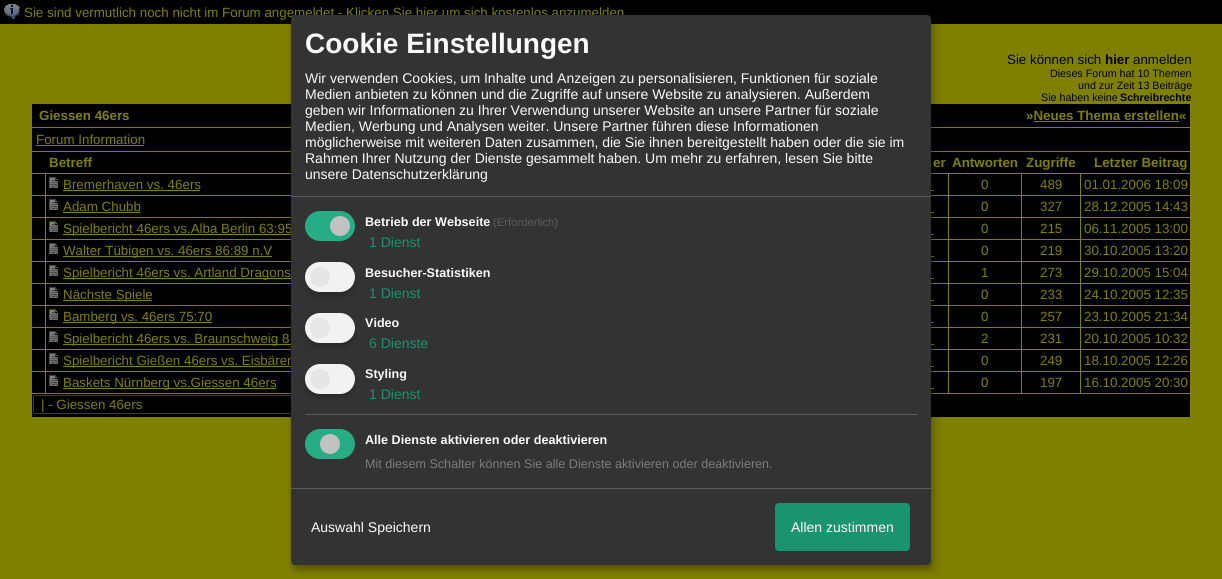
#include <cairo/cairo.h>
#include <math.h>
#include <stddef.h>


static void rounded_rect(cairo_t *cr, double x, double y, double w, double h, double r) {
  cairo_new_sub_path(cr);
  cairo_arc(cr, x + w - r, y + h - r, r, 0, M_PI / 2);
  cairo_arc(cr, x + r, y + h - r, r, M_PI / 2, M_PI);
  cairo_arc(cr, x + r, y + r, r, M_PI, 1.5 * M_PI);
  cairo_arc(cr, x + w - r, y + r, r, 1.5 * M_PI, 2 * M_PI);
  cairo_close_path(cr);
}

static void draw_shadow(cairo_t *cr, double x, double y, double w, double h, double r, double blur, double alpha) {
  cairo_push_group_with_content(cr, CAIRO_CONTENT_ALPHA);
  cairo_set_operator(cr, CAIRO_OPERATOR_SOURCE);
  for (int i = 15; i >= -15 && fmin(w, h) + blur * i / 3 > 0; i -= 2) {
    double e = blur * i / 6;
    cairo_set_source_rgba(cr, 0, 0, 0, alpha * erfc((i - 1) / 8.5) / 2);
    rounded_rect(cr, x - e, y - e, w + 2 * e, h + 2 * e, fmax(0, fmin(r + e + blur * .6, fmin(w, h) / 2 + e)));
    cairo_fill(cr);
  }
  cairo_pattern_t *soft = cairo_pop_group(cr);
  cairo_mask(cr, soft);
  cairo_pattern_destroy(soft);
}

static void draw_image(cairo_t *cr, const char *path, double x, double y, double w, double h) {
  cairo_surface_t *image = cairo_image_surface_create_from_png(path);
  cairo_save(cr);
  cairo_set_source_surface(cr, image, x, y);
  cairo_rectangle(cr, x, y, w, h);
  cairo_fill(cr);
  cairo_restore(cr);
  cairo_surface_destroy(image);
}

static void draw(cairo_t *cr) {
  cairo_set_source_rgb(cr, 128 / 255.0, 128 / 255.0, 0);
  cairo_paint(cr);
  cairo_set_source_rgb(cr, 0, 0, 0);
  cairo_rectangle(cr, 0, 0, 1222, 24);
  cairo_fill(cr);
  draw_image(cr, "images/1.png", 4, 4, 16, 15);
  cairo_rectangle(cr, 32, 104, 1158, 23);
  cairo_fill(cr);
  cairo_rectangle(cr, 32, 128, 1158, 23);
  cairo_fill(cr);
  cairo_rectangle(cr, 32, 152, 1158, 21);
  cairo_fill(cr);
  cairo_rectangle(cr, 46, 174, 245, 21);
  cairo_fill(cr);
  cairo_rectangle(cr, 931, 174, 17, 21);
  cairo_fill(cr);
  cairo_set_source_rgb(cr, 128 / 255.0, 128 / 255.0, 0);
  cairo_rectangle(cr, 931, 190, 3, 1);
  cairo_fill(cr);
  cairo_set_source_rgb(cr, 0, 0, 0);
  cairo_rectangle(cr, 949, 174, 72, 21);
  cairo_fill(cr);
  cairo_rectangle(cr, 46, 196, 245, 21);
  cairo_fill(cr);
  cairo_rectangle(cr, 931, 196, 17, 21);
  cairo_fill(cr);
  cairo_set_source_rgb(cr, 128 / 255.0, 128 / 255.0, 0);
  cairo_rectangle(cr, 931, 212, 3, 1);
  cairo_fill(cr);
  cairo_set_source_rgb(cr, 0, 0, 0);
  cairo_rectangle(cr, 949, 196, 72, 21);
  cairo_fill(cr);
  cairo_rectangle(cr, 46, 218, 245, 21);
  cairo_fill(cr);
  cairo_set_source_rgb(cr, 128 / 255.0, 128 / 255.0, 0);
  cairo_rectangle(cr, 63, 234, 229, 1);
  cairo_fill(cr);
  cairo_set_source_rgb(cr, 0, 0, 0);
  cairo_rectangle(cr, 931, 218, 17, 21);
  cairo_fill(cr);
  cairo_set_source_rgb(cr, 128 / 255.0, 128 / 255.0, 0);
  cairo_rectangle(cr, 931, 234, 3, 1);
  cairo_fill(cr);
  cairo_set_source_rgb(cr, 0, 0, 0);
  cairo_rectangle(cr, 949, 218, 72, 21);
  cairo_fill(cr);
  cairo_rectangle(cr, 46, 240, 245, 21);
  cairo_fill(cr);
  cairo_rectangle(cr, 931, 240, 17, 21);
  cairo_fill(cr);
  cairo_set_source_rgb(cr, 128 / 255.0, 128 / 255.0, 0);
  cairo_rectangle(cr, 931, 256, 3, 1);
  cairo_fill(cr);
  cairo_set_source_rgb(cr, 0, 0, 0);
  cairo_rectangle(cr, 949, 240, 72, 21);
  cairo_fill(cr);
  cairo_rectangle(cr, 46, 262, 245, 21);
  cairo_fill(cr);
  cairo_set_source_rgb(cr, 128 / 255.0, 128 / 255.0, 0);
  cairo_rectangle(cr, 63, 278, 228, 1);
  cairo_fill(cr);
  cairo_set_source_rgb(cr, 0, 0, 0);
  cairo_rectangle(cr, 931, 262, 17, 21);
  cairo_fill(cr);
  cairo_set_source_rgb(cr, 128 / 255.0, 128 / 255.0, 0);
  cairo_rectangle(cr, 931, 278, 3, 1);
  cairo_fill(cr);
  cairo_set_source_rgb(cr, 0, 0, 0);
  cairo_rectangle(cr, 949, 262, 72, 21);
  cairo_fill(cr);
  cairo_rectangle(cr, 46, 284, 245, 21);
  cairo_fill(cr);
  cairo_rectangle(cr, 931, 284, 17, 21);
  cairo_fill(cr);
  cairo_set_source_rgb(cr, 128 / 255.0, 128 / 255.0, 0);
  cairo_rectangle(cr, 931, 300, 3, 1);
  cairo_fill(cr);
  cairo_set_source_rgb(cr, 0, 0, 0);
  cairo_rectangle(cr, 949, 284, 72, 21);
  cairo_fill(cr);
  cairo_rectangle(cr, 46, 306, 245, 21);
  cairo_fill(cr);
  cairo_rectangle(cr, 931, 306, 17, 21);
  cairo_fill(cr);
  cairo_set_source_rgb(cr, 128 / 255.0, 128 / 255.0, 0);
  cairo_rectangle(cr, 931, 322, 3, 1);
  cairo_fill(cr);
  cairo_set_source_rgb(cr, 0, 0, 0);
  cairo_rectangle(cr, 949, 306, 72, 21);
  cairo_fill(cr);
  cairo_rectangle(cr, 46, 328, 245, 21);
  cairo_fill(cr);
  cairo_set_source_rgb(cr, 128 / 255.0, 128 / 255.0, 0);
  cairo_rectangle(cr, 63, 344, 228, 1);
  cairo_fill(cr);
  cairo_set_source_rgb(cr, 0, 0, 0);
  cairo_rectangle(cr, 931, 328, 17, 21);
  cairo_fill(cr);
  cairo_set_source_rgb(cr, 128 / 255.0, 128 / 255.0, 0);
  cairo_rectangle(cr, 931, 344, 3, 1);
  cairo_fill(cr);
  cairo_set_source_rgb(cr, 0, 0, 0);
  cairo_rectangle(cr, 949, 328, 72, 21);
  cairo_fill(cr);
  cairo_rectangle(cr, 46, 350, 245, 21);
  cairo_fill(cr);
  cairo_set_source_rgb(cr, 128 / 255.0, 128 / 255.0, 0);
  cairo_rectangle(cr, 63, 366, 228, 1);
  cairo_fill(cr);
  cairo_set_source_rgb(cr, 0, 0, 0);
  cairo_rectangle(cr, 931, 350, 17, 21);
  cairo_fill(cr);
  cairo_set_source_rgb(cr, 128 / 255.0, 128 / 255.0, 0);
  cairo_rectangle(cr, 931, 366, 3, 1);
  cairo_fill(cr);
  cairo_set_source_rgb(cr, 0, 0, 0);
  cairo_rectangle(cr, 949, 350, 72, 21);
  cairo_fill(cr);
  cairo_rectangle(cr, 46, 372, 245, 21);
  cairo_fill(cr);
  cairo_rectangle(cr, 931, 372, 17, 21);
  cairo_fill(cr);
  cairo_set_source_rgb(cr, 128 / 255.0, 128 / 255.0, 0);
  cairo_rectangle(cr, 931, 388, 3, 1);
  cairo_fill(cr);
  cairo_set_source_rgb(cr, 0, 0, 0);
  cairo_rectangle(cr, 949, 372, 72, 21);
  cairo_fill(cr);
  cairo_rectangle(cr, 32, 394, 1158, 23);
  cairo_fill(cr);
  rounded_rect(cr, 33.5, 395.5, 402, 18, 1.5);
  cairo_set_source_rgb(cr, 59 / 255.0, 59 / 255.0, 59 / 255.0);
  cairo_set_line_width(cr, 1);
  cairo_stroke(cr);
  cairo_set_source_rgb(cr, 0, 0, 0);
  draw_shadow(cr, 296, 20, 640, 550, 4, 5, 0.19);
  draw_shadow(cr, 291, 19, 640, 550, 4, 3, 0.2);
  cairo_set_source_rgb(cr, 128 / 255.0, 128 / 255.0, 0);
  cairo_rectangle(cr, 1034, 121, 145, 1);
  cairo_fill(cr);
  cairo_rectangle(cr, 36, 145, 108, 1);
  cairo_fill(cr);
  cairo_set_source_rgb(cr, 0, 0, 0);
  cairo_rectangle(cr, 32, 174, 13, 21);
  cairo_fill(cr);
  draw_image(cr, "images/2.png", 49, 177, 9, 11);
  cairo_set_source_rgb(cr, 128 / 255.0, 128 / 255.0, 0);
  cairo_rectangle(cr, 63, 190, 137, 1);
  cairo_fill(cr);
  cairo_set_source_rgb(cr, 0, 0, 0);
  cairo_rectangle(cr, 1022, 174, 58, 21);
  cairo_fill(cr);
  cairo_rectangle(cr, 1081, 174, 109, 21);
  cairo_fill(cr);
  cairo_rectangle(cr, 32, 196, 13, 21);
  cairo_fill(cr);
  draw_image(cr, "images/2.png", 49, 199, 9, 11);
  cairo_set_source_rgb(cr, 128 / 255.0, 128 / 255.0, 0);
  cairo_rectangle(cr, 63, 212, 77, 1);
  cairo_fill(cr);
  cairo_set_source_rgb(cr, 0, 0, 0);
  cairo_rectangle(cr, 1022, 196, 58, 21);
  cairo_fill(cr);
  cairo_rectangle(cr, 1081, 196, 109, 21);
  cairo_fill(cr);
  cairo_rectangle(cr, 32, 218, 13, 21);
  cairo_fill(cr);
  draw_image(cr, "images/2.png", 49, 221, 9, 11);
  cairo_rectangle(cr, 1022, 218, 58, 21);
  cairo_fill(cr);
  cairo_rectangle(cr, 1081, 218, 109, 21);
  cairo_fill(cr);
  cairo_rectangle(cr, 32, 240, 13, 21);
  cairo_fill(cr);
  draw_image(cr, "images/2.png", 49, 243, 9, 11);
  cairo_set_source_rgb(cr, 128 / 255.0, 128 / 255.0, 0);
  cairo_rectangle(cr, 63, 256, 209, 1);
  cairo_fill(cr);
  cairo_set_source_rgb(cr, 0, 0, 0);
  cairo_rectangle(cr, 1022, 240, 58, 21);
  cairo_fill(cr);
  cairo_rectangle(cr, 1081, 240, 109, 21);
  cairo_fill(cr);
  cairo_rectangle(cr, 32, 262, 13, 21);
  cairo_fill(cr);
  draw_image(cr, "images/2.png", 49, 265, 9, 11);
  cairo_rectangle(cr, 1022, 262, 58, 21);
  cairo_fill(cr);
  cairo_rectangle(cr, 1081, 262, 109, 21);
  cairo_fill(cr);
  cairo_rectangle(cr, 32, 284, 13, 21);
  cairo_fill(cr);
  draw_image(cr, "images/2.png", 49, 287, 9, 11);
  cairo_set_source_rgb(cr, 128 / 255.0, 128 / 255.0, 0);
  cairo_rectangle(cr, 63, 300, 89, 1);
  cairo_fill(cr);
  cairo_set_source_rgb(cr, 0, 0, 0);
  cairo_rectangle(cr, 1022, 284, 58, 21);
  cairo_fill(cr);
  cairo_rectangle(cr, 1081, 284, 109, 21);
  cairo_fill(cr);
  cairo_rectangle(cr, 32, 306, 13, 21);
  cairo_fill(cr);
  draw_image(cr, "images/2.png", 49, 309, 9, 11);
  cairo_set_source_rgb(cr, 128 / 255.0, 128 / 255.0, 0);
  cairo_rectangle(cr, 63, 322, 149, 1);
  cairo_fill(cr);
  cairo_set_source_rgb(cr, 0, 0, 0);
  cairo_rectangle(cr, 1022, 306, 58, 21);
  cairo_fill(cr);
  cairo_rectangle(cr, 1081, 306, 109, 21);
  cairo_fill(cr);
  cairo_rectangle(cr, 32, 328, 13, 21);
  cairo_fill(cr);
  draw_image(cr, "images/2.png", 49, 331, 9, 11);
  cairo_rectangle(cr, 1022, 328, 58, 21);
  cairo_fill(cr);
  cairo_rectangle(cr, 1081, 328, 109, 21);
  cairo_fill(cr);
  cairo_rectangle(cr, 32, 350, 13, 21);
  cairo_fill(cr);
  draw_image(cr, "images/2.png", 49, 353, 9, 11);
  cairo_rectangle(cr, 1022, 350, 58, 21);
  cairo_fill(cr);
  cairo_rectangle(cr, 1081, 350, 109, 21);
  cairo_fill(cr);
  cairo_rectangle(cr, 32, 372, 13, 21);
  cairo_fill(cr);
  draw_image(cr, "images/2.png", 49, 375, 9, 11);
  cairo_set_source_rgb(cr, 128 / 255.0, 128 / 255.0, 0);
  cairo_rectangle(cr, 63, 388, 213, 1);
  cairo_fill(cr);
  cairo_set_source_rgb(cr, 0, 0, 0);
  cairo_rectangle(cr, 1022, 372, 58, 21);
  cairo_fill(cr);
  cairo_rectangle(cr, 1081, 372, 109, 21);
  cairo_fill(cr);
  cairo_select_font_face(cr, "Liberation Sans", CAIRO_FONT_SLANT_NORMAL, CAIRO_FONT_WEIGHT_NORMAL);
  cairo_set_font_size(cr, 13.35);
  cairo_set_source_rgb(cr, 128 / 255.0, 128 / 255.0, 0);
  cairo_move_to(cr, 24, 17);
  cairo_show_text(cr, "Sie sind vermutlich noch nicht im Forum angemeldet - Klicken Sie hier um sich kostenlos anzumelden");
  cairo_set_source_rgb(cr, 0, 0, 0);
  cairo_move_to(cr, 1007, 64);
  cairo_show_text(cr, "Sie können sich");
  cairo_select_font_face(cr, "Liberation Sans", CAIRO_FONT_SLANT_NORMAL, CAIRO_FONT_WEIGHT_BOLD);
  cairo_move_to(cr, 1105, 64);
  cairo_show_text(cr, "hier");
  cairo_select_font_face(cr, "Liberation Sans", CAIRO_FONT_SLANT_NORMAL, CAIRO_FONT_WEIGHT_NORMAL);
  cairo_move_to(cr, 1133, 64);
  cairo_show_text(cr, "anmelden");
  cairo_set_font_size(cr, 10.7);
  cairo_move_to(cr, 1050, 77);
  cairo_show_text(cr, "Dieses Forum hat 10 Themen");
  cairo_move_to(cr, 1078, 89);
  cairo_show_text(cr, "und zur Zeit 13 Beiträge");
  cairo_move_to(cr, 1041, 101);
  cairo_show_text(cr, "Sie haben keine");
  cairo_select_font_face(cr, "Liberation Sans", CAIRO_FONT_SLANT_NORMAL, CAIRO_FONT_WEIGHT_BOLD);
  cairo_move_to(cr, 1120, 101);
  cairo_show_text(cr, "Schreibrechte");
  cairo_set_font_size(cr, 13.35);
  cairo_set_source_rgb(cr, 128 / 255.0, 128 / 255.0, 0);
  cairo_move_to(cr, 39, 120);
  cairo_show_text(cr, "Giessen 46ers");
  cairo_move_to(cr, 1026, 120);
  cairo_show_text(cr, "»Neues Thema erstellen«");
  cairo_select_font_face(cr, "Liberation Sans", CAIRO_FONT_SLANT_NORMAL, CAIRO_FONT_WEIGHT_NORMAL);
  cairo_move_to(cr, 36, 144);
  cairo_show_text(cr, "Forum Information");
  cairo_select_font_face(cr, "Liberation Sans", CAIRO_FONT_SLANT_NORMAL, CAIRO_FONT_WEIGHT_BOLD);
  cairo_move_to(cr, 49, 167);
  cairo_show_text(cr, "Betreff");
  cairo_move_to(cr, 933, 167);
  cairo_show_text(cr, "er");
  cairo_move_to(cr, 952, 167);
  cairo_show_text(cr, "Antworten");
  cairo_move_to(cr, 1026, 167);
  cairo_show_text(cr, "Zugriffe");
  cairo_move_to(cr, 1094, 167);
  cairo_show_text(cr, "Letzter Beitrag");
  cairo_select_font_face(cr, "Liberation Sans", CAIRO_FONT_SLANT_NORMAL, CAIRO_FONT_WEIGHT_NORMAL);
  cairo_move_to(cr, 63, 189);
  cairo_show_text(cr, "Bremerhaven vs. 46ers");
  cairo_move_to(cr, 981, 189);
  cairo_show_text(cr, "0");
  cairo_move_to(cr, 1040, 189);
  cairo_show_text(cr, "489");
  cairo_move_to(cr, 1084, 189);
  cairo_show_text(cr, "01.01.2006 18:09");
  cairo_move_to(cr, 63, 211);
  cairo_show_text(cr, "Adam Chubb");
  cairo_move_to(cr, 981, 211);
  cairo_show_text(cr, "0");
  cairo_move_to(cr, 1040, 211);
  cairo_show_text(cr, "327");
  cairo_move_to(cr, 1084, 211);
  cairo_show_text(cr, "28.12.2005 14:43");
  cairo_move_to(cr, 63, 233);
  cairo_show_text(cr, "Spielbericht 46ers vs.Alba Berlin 63:95");
  cairo_move_to(cr, 981, 233);
  cairo_show_text(cr, "0");
  cairo_move_to(cr, 1040, 233);
  cairo_show_text(cr, "215");
  cairo_move_to(cr, 1084, 233);
  cairo_show_text(cr, "06.11.2005 13:00");
  cairo_move_to(cr, 63, 255);
  cairo_show_text(cr, "Walter Tübigen vs. 46ers 86:89 n.V");
  cairo_move_to(cr, 981, 255);
  cairo_show_text(cr, "0");
  cairo_move_to(cr, 1040, 255);
  cairo_show_text(cr, "219");
  cairo_move_to(cr, 1084, 255);
  cairo_show_text(cr, "30.10.2005 13:20");
  cairo_move_to(cr, 63, 277);
  cairo_show_text(cr, "Spielbericht 46ers vs. Artland Dragons");
  cairo_move_to(cr, 981, 277);
  cairo_show_text(cr, "1");
  cairo_move_to(cr, 1040, 277);
  cairo_show_text(cr, "273");
  cairo_move_to(cr, 1084, 277);
  cairo_show_text(cr, "29.10.2005 15:04");
  cairo_move_to(cr, 63, 299);
  cairo_show_text(cr, "Nächste Spiele");
  cairo_move_to(cr, 981, 299);
  cairo_show_text(cr, "0");
  cairo_move_to(cr, 1040, 299);
  cairo_show_text(cr, "233");
  cairo_move_to(cr, 1084, 299);
  cairo_show_text(cr, "24.10.2005 12:35");
  cairo_move_to(cr, 63, 321);
  cairo_show_text(cr, "Bamberg vs. 46ers 75:70");
  cairo_move_to(cr, 981, 321);
  cairo_show_text(cr, "0");
  cairo_move_to(cr, 1040, 321);
  cairo_show_text(cr, "257");
  cairo_move_to(cr, 1084, 321);
  cairo_show_text(cr, "23.10.2005 21:34");
  cairo_move_to(cr, 63, 343);
  cairo_show_text(cr, "Spielbericht 46ers vs. Braunschweig 8");
  cairo_move_to(cr, 981, 343);
  cairo_show_text(cr, "2");
  cairo_move_to(cr, 1040, 343);
  cairo_show_text(cr, "231");
  cairo_move_to(cr, 1084, 343);
  cairo_show_text(cr, "20.10.2005 10:32");
  cairo_move_to(cr, 63, 365);
  cairo_show_text(cr, "Spielbericht Gießen 46ers vs. Eisbären");
  cairo_set_source_rgb(cr, 51 / 255.0, 51 / 255.0, 51 / 255.0);
  rounded_rect(cr, 291, 15, 640, 550, 4);
  cairo_fill(cr);
  cairo_set_source_rgb(cr, 39 / 255.0, 173 / 255.0, 133 / 255.0);
  rounded_rect(cr, 305, 429, 50, 30, 15);
  cairo_fill(cr);
  cairo_set_source_rgb(cr, 194 / 255.0, 194 / 255.0, 194 / 255.0);
  cairo_arc(cr, 330, 444, 10, 0, 2 * M_PI);
  cairo_fill(cr);
  cairo_set_font_size(cr, 12.6);
  cairo_set_source_rgb(cr, 124 / 255.0, 124 / 255.0, 124 / 255.0);
  cairo_move_to(cr, 365, 468);
  cairo_show_text(cr, "Mit diesem Schalter können Sie alle Dienste aktivieren oder deaktivieren.");
  cairo_select_font_face(cr, "Liberation Sans", CAIRO_FONT_SLANT_NORMAL, CAIRO_FONT_WEIGHT_BOLD);
  cairo_set_source_rgb(cr, 250 / 255.0, 250 / 255.0, 250 / 255.0);
  cairo_move_to(cr, 365, 444);
  cairo_show_text(cr, "Alle Dienste aktivieren oder deaktivieren");
  cairo_set_source_rgb(cr, 92 / 255.0, 92 / 255.0, 92 / 255.0);
  cairo_rectangle(cr, 305, 414, 612, 1);
  cairo_fill(cr);
  cairo_set_source_rgb(cr, 0, 0, 0);
  draw_shadow(cr, 305, 368, 50, 30, 15, 3, 0.2);
  cairo_set_source_rgb(cr, 242 / 255.0, 242 / 255.0, 242 / 255.0);
  rounded_rect(cr, 305, 364, 50, 30, 15);
  cairo_fill(cr);
  cairo_set_source_rgb(cr, 230 / 255.0, 230 / 255.0, 230 / 255.0);
  cairo_arc(cr, 320, 379, 10, 0, 2 * M_PI);
  cairo_fill(cr);
  cairo_select_font_face(cr, "Liberation Sans", CAIRO_FONT_SLANT_NORMAL, CAIRO_FONT_WEIGHT_NORMAL);
  cairo_set_font_size(cr, 14);
  cairo_set_source_rgb(cr, 26 / 255.0, 147 / 255.0, 111 / 255.0);
  cairo_move_to(cr, 369, 399);
  cairo_show_text(cr, "1 Dienst");
  cairo_select_font_face(cr, "Liberation Sans", CAIRO_FONT_SLANT_NORMAL, CAIRO_FONT_WEIGHT_BOLD);
  cairo_set_font_size(cr, 12.6);
  cairo_set_source_rgb(cr, 250 / 255.0, 250 / 255.0, 250 / 255.0);
  cairo_move_to(cr, 365, 378);
  cairo_show_text(cr, "Styling");
  cairo_set_source_rgb(cr, 0, 0, 0);
  draw_shadow(cr, 305, 317, 50, 30, 15, 3, 0.2);
  cairo_set_source_rgb(cr, 242 / 255.0, 242 / 255.0, 242 / 255.0);
  rounded_rect(cr, 305, 313, 50, 30, 15);
  cairo_fill(cr);
  cairo_set_source_rgb(cr, 230 / 255.0, 230 / 255.0, 230 / 255.0);
  cairo_arc(cr, 320, 328, 10, 0, 2 * M_PI);
  cairo_fill(cr);
  cairo_select_font_face(cr, "Liberation Sans", CAIRO_FONT_SLANT_NORMAL, CAIRO_FONT_WEIGHT_NORMAL);
  cairo_set_font_size(cr, 14);
  cairo_set_source_rgb(cr, 26 / 255.0, 147 / 255.0, 111 / 255.0);
  cairo_move_to(cr, 369, 348);
  cairo_show_text(cr, "6 Dienste");
  cairo_select_font_face(cr, "Liberation Sans", CAIRO_FONT_SLANT_NORMAL, CAIRO_FONT_WEIGHT_BOLD);
  cairo_set_font_size(cr, 12.6);
  cairo_set_source_rgb(cr, 250 / 255.0, 250 / 255.0, 250 / 255.0);
  cairo_move_to(cr, 365, 327);
  cairo_show_text(cr, "Video");
  cairo_set_source_rgb(cr, 0, 0, 0);
  draw_shadow(cr, 305, 266, 50, 30, 15, 3, 0.2);
  cairo_set_source_rgb(cr, 242 / 255.0, 242 / 255.0, 242 / 255.0);
  rounded_rect(cr, 305, 262, 50, 30, 15);
  cairo_fill(cr);
  cairo_set_source_rgb(cr, 230 / 255.0, 230 / 255.0, 230 / 255.0);
  cairo_arc(cr, 320, 277, 10, 0, 2 * M_PI);
  cairo_fill(cr);
  cairo_select_font_face(cr, "Liberation Sans", CAIRO_FONT_SLANT_NORMAL, CAIRO_FONT_WEIGHT_NORMAL);
  cairo_set_font_size(cr, 14);
  cairo_set_source_rgb(cr, 26 / 255.0, 147 / 255.0, 111 / 255.0);
  cairo_move_to(cr, 369, 298);
  cairo_show_text(cr, "1 Dienst");
  cairo_select_font_face(cr, "Liberation Sans", CAIRO_FONT_SLANT_NORMAL, CAIRO_FONT_WEIGHT_BOLD);
  cairo_set_font_size(cr, 12.6);
  cairo_set_source_rgb(cr, 250 / 255.0, 250 / 255.0, 250 / 255.0);
  cairo_move_to(cr, 365, 277);
  cairo_show_text(cr, "Besucher-Statistiken");
  cairo_set_source_rgb(cr, 39 / 255.0, 173 / 255.0, 133 / 255.0);
  rounded_rect(cr, 305, 211, 50, 30, 15);
  cairo_fill(cr);
  cairo_set_source_rgb(cr, 194 / 255.0, 194 / 255.0, 194 / 255.0);
  cairo_arc(cr, 340, 226, 10, 0, 2 * M_PI);
  cairo_fill(cr);
  cairo_select_font_face(cr, "Liberation Sans", CAIRO_FONT_SLANT_NORMAL, CAIRO_FONT_WEIGHT_NORMAL);
  cairo_set_font_size(cr, 14);
  cairo_set_source_rgb(cr, 26 / 255.0, 147 / 255.0, 111 / 255.0);
  cairo_move_to(cr, 369, 247);
  cairo_show_text(cr, "1 Dienst");
  cairo_set_font_size(cr, 11.25);
  cairo_set_source_rgb(cr, 92 / 255.0, 92 / 255.0, 92 / 255.0);
  cairo_move_to(cr, 493, 226);
  cairo_show_text(cr, "(Erforderlich)");
  cairo_select_font_face(cr, "Liberation Sans", CAIRO_FONT_SLANT_NORMAL, CAIRO_FONT_WEIGHT_BOLD);
  cairo_set_font_size(cr, 12.6);
  cairo_set_source_rgb(cr, 250 / 255.0, 250 / 255.0, 250 / 255.0);
  cairo_move_to(cr, 365, 226);
  cairo_show_text(cr, "Betrieb der Webseite");
  cairo_set_source_rgb(cr, 26 / 255.0, 147 / 255.0, 111 / 255.0);
  rounded_rect(cr, 775, 503, 135, 48, 4);
  cairo_fill(cr);
  cairo_select_font_face(cr, "Liberation Sans", CAIRO_FONT_SLANT_NORMAL, CAIRO_FONT_WEIGHT_NORMAL);
  cairo_set_font_size(cr, 14);
  cairo_set_source_rgb(cr, 250 / 255.0, 250 / 255.0, 250 / 255.0);
  cairo_move_to(cr, 791, 532);
  cairo_show_text(cr, "Allen zustimmen");
  cairo_move_to(cr, 311, 532);
  cairo_show_text(cr, "Auswahl Speichern");
  cairo_move_to(cr, 305, 179);
  cairo_show_text(cr, "unsere Datenschutzerklärung");
  cairo_move_to(cr, 305, 163);
  cairo_show_text(cr, "Rahmen Ihrer Nutzung der Dienste gesammelt haben. Um mehr zu erfahren, lesen Sie bitte");
  cairo_move_to(cr, 305, 147);
  cairo_show_text(cr, "möglicherweise mit weiteren Daten zusammen, die Sie ihnen bereitgestellt haben oder die sie im");
  cairo_move_to(cr, 305, 131);
  cairo_show_text(cr, "Medien, Werbung und Analysen weiter. Unsere Partner führen diese Informationen");
  cairo_move_to(cr, 305, 115);
  cairo_show_text(cr, "geben wir Informationen zu Ihrer Verwendung unserer Website an unsere Partner für soziale");
  cairo_move_to(cr, 305, 99);
  cairo_show_text(cr, "Medien anbieten zu können und die Zugriffe auf unsere Website zu analysieren. Außerdem");
  cairo_move_to(cr, 305, 83);
  cairo_show_text(cr, "Wir verwenden Cookies, um Inhalte und Anzeigen zu personalisieren, Funktionen für soziale");
  cairo_select_font_face(cr, "Liberation Sans", CAIRO_FONT_SLANT_NORMAL, CAIRO_FONT_WEIGHT_BOLD);
  cairo_set_font_size(cr, 28);
  cairo_move_to(cr, 305, 53);
  cairo_show_text(cr, "Cookie Einstellungen");
  cairo_set_source_rgb(cr, 92 / 255.0, 92 / 255.0, 92 / 255.0);
  cairo_rectangle(cr, 291, 488, 640, 1);
  cairo_fill(cr);
  cairo_rectangle(cr, 291, 196, 640, 1);
  cairo_fill(cr);
  cairo_select_font_face(cr, "Liberation Sans", CAIRO_FONT_SLANT_NORMAL, CAIRO_FONT_WEIGHT_NORMAL);
  cairo_set_font_size(cr, 13.35);
  cairo_set_source_rgb(cr, 128 / 255.0, 128 / 255.0, 0);
  cairo_move_to(cr, 981, 365);
  cairo_show_text(cr, "0");
  cairo_move_to(cr, 1040, 365);
  cairo_show_text(cr, "249");
  cairo_move_to(cr, 1084, 365);
  cairo_show_text(cr, "18.10.2005 12:26");
  cairo_move_to(cr, 63, 387);
  cairo_show_text(cr, "Baskets Nürnberg vs.Giessen 46ers");
  cairo_move_to(cr, 981, 387);
  cairo_show_text(cr, "0");
  cairo_move_to(cr, 1040, 387);
  cairo_show_text(cr, "197");
  cairo_move_to(cr, 1084, 387);
  cairo_show_text(cr, "16.10.2005 20:30");
  cairo_move_to(cr, 41, 409);
  cairo_show_text(cr, "| - Giessen 46ers");
}

int main(void) {
  cairo_surface_t *surface = cairo_image_surface_create(CAIRO_FORMAT_RGB24, 1222, 579);
  cairo_t *cr = cairo_create(surface);
  cairo_font_options_t *options = cairo_font_options_create();
  cairo_font_options_set_hint_metrics(options, CAIRO_HINT_METRICS_OFF);
  cairo_font_options_set_hint_style(options, CAIRO_HINT_STYLE_NONE);
  cairo_set_font_options(cr, options);
  cairo_set_miter_limit(cr, 4);
  draw(cr);
  cairo_surface_write_to_png(surface, "out.png");
  cairo_font_options_destroy(options);
  cairo_destroy(cr);
  cairo_surface_destroy(surface);
  return 0;
}
